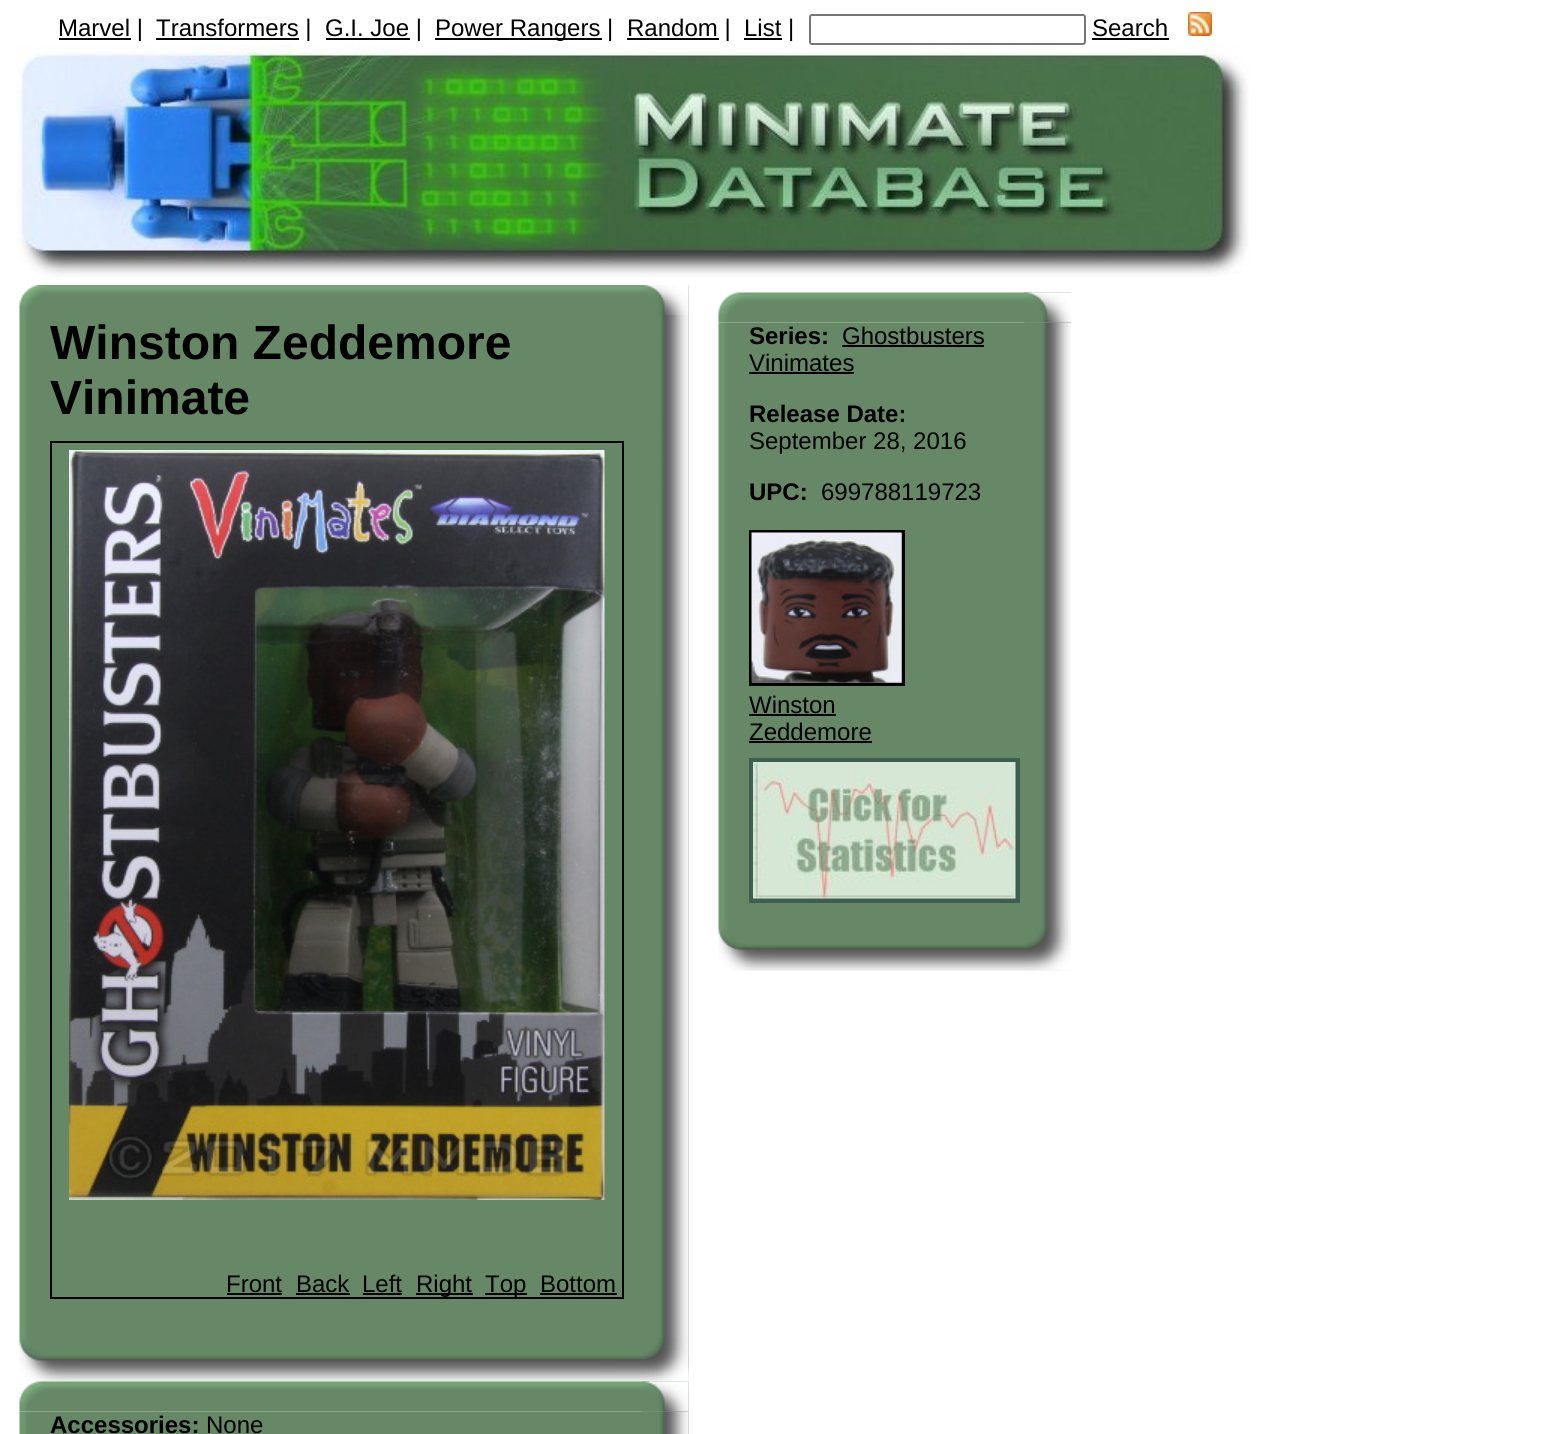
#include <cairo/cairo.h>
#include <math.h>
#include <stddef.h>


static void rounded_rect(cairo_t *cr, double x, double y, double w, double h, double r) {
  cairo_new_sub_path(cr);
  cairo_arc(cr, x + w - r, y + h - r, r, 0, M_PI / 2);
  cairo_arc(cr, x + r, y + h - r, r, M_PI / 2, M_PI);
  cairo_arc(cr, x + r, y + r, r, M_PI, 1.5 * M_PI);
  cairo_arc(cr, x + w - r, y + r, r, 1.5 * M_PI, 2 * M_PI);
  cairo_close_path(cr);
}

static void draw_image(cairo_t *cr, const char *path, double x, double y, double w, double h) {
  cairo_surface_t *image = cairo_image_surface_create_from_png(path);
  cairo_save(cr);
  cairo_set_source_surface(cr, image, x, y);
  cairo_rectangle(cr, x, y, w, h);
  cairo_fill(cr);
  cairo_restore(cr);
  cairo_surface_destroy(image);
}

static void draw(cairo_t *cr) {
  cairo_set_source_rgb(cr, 1, 1, 1);
  cairo_paint(cr);
  cairo_set_source_rgb(cr, 0, 0, 0);
  cairo_rectangle(cr, 59, 38, 72, 2);
  cairo_fill(cr);
  cairo_rectangle(cr, 156, 38, 143, 2);
  cairo_fill(cr);
  cairo_rectangle(cr, 326, 38, 84, 2);
  cairo_fill(cr);
  cairo_rectangle(cr, 435, 38, 167, 2);
  cairo_fill(cr);
  cairo_rectangle(cr, 627, 38, 92, 2);
  cairo_fill(cr);
  cairo_rectangle(cr, 744, 38, 38, 2);
  cairo_fill(cr);
  rounded_rect(cr, 810, 15, 275, 29, 2);
  cairo_set_source_rgb(cr, 118 / 255.0, 118 / 255.0, 118 / 255.0);
  cairo_stroke(cr);
  cairo_set_source_rgb(cr, 0, 0, 0);
  cairo_rectangle(cr, 1092, 38, 77, 2);
  cairo_fill(cr);
  draw_image(cr, "images/1.png", 1188, 12, 24, 24);
  draw_image(cr, "images/2.png", 18, 45, 1231, 232);
  draw_image(cr, "images/3.png", 19, 285, 670, 30);
  draw_image(cr, "images/4.png", 643, 285, 46, 30);
  draw_image(cr, "images/5.png", 19, 315, 670, 1023);
  draw_image(cr, "images/6.png", 660, 315, 29, 1023);
  cairo_rectangle(cr, 51, 442, 572, 856);
  cairo_stroke(cr);
  draw_image(cr, "images/7.png", 69, 450, 536, 750);
  cairo_rectangle(cr, 227, 1293, 55, 2);
  cairo_fill(cr);
  cairo_rectangle(cr, 296, 1293, 54, 2);
  cairo_fill(cr);
  cairo_rectangle(cr, 363, 1293, 39, 2);
  cairo_fill(cr);
  cairo_rectangle(cr, 416, 1293, 57, 2);
  cairo_fill(cr);
  cairo_rectangle(cr, 485, 1293, 42, 2);
  cairo_fill(cr);
  cairo_rectangle(cr, 540, 1293, 77, 2);
  cairo_fill(cr);
  draw_image(cr, "images/8.png", 19, 1338, 670, 44);
  draw_image(cr, "images/9.png", 642, 1338, 47, 44);
  draw_image(cr, "images/10.png", 19, 1381, 670, 31);
  draw_image(cr, "images/11.png", 642, 1381, 47, 31);
  draw_image(cr, "images/12.png", 19, 1411, 670, 23);
  draw_image(cr, "images/13.png", 642, 1411, 47, 23);
  draw_image(cr, "images/14.png", 718, 292, 353, 31);
  draw_image(cr, "images/15.png", 1024, 292, 47, 31);
  draw_image(cr, "images/16.png", 718, 322, 353, 605);
  draw_image(cr, "images/17.png", 1024, 322, 47, 605);
  cairo_rectangle(cr, 842, 345, 142, 2);
  cairo_fill(cr);
  cairo_rectangle(cr, 749, 372, 105, 2);
  cairo_fill(cr);
  cairo_rectangle(cr, 750.5, 531.5, 153, 153);
  cairo_set_line_width(cr, 3);
  cairo_stroke(cr);
  draw_image(cr, "images/18.png", 751, 532, 151, 151);
  cairo_rectangle(cr, 749, 714, 87, 2);
  cairo_fill(cr);
  cairo_rectangle(cr, 749, 741, 123, 2);
  cairo_fill(cr);
  cairo_rectangle(cr, 751.5, 760.5, 266, 140);
  cairo_set_source_rgb(cr, 62 / 255.0, 95 / 255.0, 80 / 255.0);
  cairo_set_line_width(cr, 5);
  cairo_stroke(cr);
  draw_image(cr, "images/19.png", 753, 762, 263, 137);
  draw_image(cr, "images/20.png", 718, 927, 353, 44);
  draw_image(cr, "images/21.png", 1025, 927, 46, 44);
  cairo_select_font_face(cr, "Liberation Sans", CAIRO_FONT_SLANT_NORMAL, CAIRO_FONT_WEIGHT_NORMAL);
  cairo_set_font_size(cr, 24);
  cairo_set_source_rgb(cr, 0, 0, 0);
  cairo_move_to(cr, 58, 36);
  cairo_show_text(cr, "Marvel |");
  cairo_move_to(cr, 156, 36);
  cairo_show_text(cr, "Transformers |");
  cairo_move_to(cr, 325, 36);
  cairo_show_text(cr, "G.I. Joe |");
  cairo_move_to(cr, 435, 36);
  cairo_show_text(cr, "Power Rangers |");
  cairo_move_to(cr, 627, 36);
  cairo_show_text(cr, "Random |");
  cairo_move_to(cr, 744, 36);
  cairo_show_text(cr, "List |");
  cairo_move_to(cr, 1092, 36);
  cairo_show_text(cr, "Search");
  cairo_select_font_face(cr, "Liberation Sans", CAIRO_FONT_SLANT_NORMAL, CAIRO_FONT_WEIGHT_BOLD);
  cairo_set_font_size(cr, 48);
  cairo_move_to(cr, 50, 359);
  cairo_show_text(cr, "Winston Zeddemore");
  cairo_move_to(cr, 50, 414);
  cairo_show_text(cr, "Vinimate");
  cairo_select_font_face(cr, "Liberation Sans", CAIRO_FONT_SLANT_NORMAL, CAIRO_FONT_WEIGHT_NORMAL);
  cairo_set_font_size(cr, 24);
  cairo_move_to(cr, 226, 1292);
  cairo_show_text(cr, "Front");
  cairo_move_to(cr, 296, 1292);
  cairo_show_text(cr, "Back");
  cairo_move_to(cr, 362, 1292);
  cairo_show_text(cr, "Left");
  cairo_move_to(cr, 416, 1292);
  cairo_show_text(cr, "Right");
  cairo_move_to(cr, 485, 1292);
  cairo_show_text(cr, "Top");
  cairo_move_to(cr, 540, 1292);
  cairo_show_text(cr, "Bottom");
  cairo_select_font_face(cr, "Liberation Sans", CAIRO_FONT_SLANT_NORMAL, CAIRO_FONT_WEIGHT_BOLD);
  cairo_move_to(cr, 50, 1433);
  cairo_show_text(cr, "Accessories:");
  cairo_select_font_face(cr, "Liberation Sans", CAIRO_FONT_SLANT_NORMAL, CAIRO_FONT_WEIGHT_NORMAL);
  cairo_move_to(cr, 206, 1433);
  cairo_show_text(cr, "None");
  cairo_select_font_face(cr, "Liberation Sans", CAIRO_FONT_SLANT_NORMAL, CAIRO_FONT_WEIGHT_BOLD);
  cairo_move_to(cr, 749, 344);
  cairo_show_text(cr, "Series:");
  cairo_select_font_face(cr, "Liberation Sans", CAIRO_FONT_SLANT_NORMAL, CAIRO_FONT_WEIGHT_NORMAL);
  cairo_move_to(cr, 842, 344);
  cairo_show_text(cr, "Ghostbusters");
  cairo_move_to(cr, 749, 371);
  cairo_show_text(cr, "Vinimates");
  cairo_select_font_face(cr, "Liberation Sans", CAIRO_FONT_SLANT_NORMAL, CAIRO_FONT_WEIGHT_BOLD);
  cairo_move_to(cr, 749, 422);
  cairo_show_text(cr, "Release Date:");
  cairo_select_font_face(cr, "Liberation Sans", CAIRO_FONT_SLANT_NORMAL, CAIRO_FONT_WEIGHT_NORMAL);
  cairo_move_to(cr, 749, 449);
  cairo_show_text(cr, "September 28, 2016");
  cairo_select_font_face(cr, "Liberation Sans", CAIRO_FONT_SLANT_NORMAL, CAIRO_FONT_WEIGHT_BOLD);
  cairo_move_to(cr, 749, 500);
  cairo_show_text(cr, "UPC:");
  cairo_select_font_face(cr, "Liberation Sans", CAIRO_FONT_SLANT_NORMAL, CAIRO_FONT_WEIGHT_NORMAL);
  cairo_move_to(cr, 821, 500);
  cairo_show_text(cr, "699788119723");
  cairo_move_to(cr, 749, 713);
  cairo_show_text(cr, "Winston");
  cairo_move_to(cr, 749, 740);
  cairo_show_text(cr, "Zeddemore");
}

int main(void) {
  cairo_surface_t *surface = cairo_image_surface_create(CAIRO_FORMAT_RGB24, 1544, 1434);
  cairo_t *cr = cairo_create(surface);
  cairo_font_options_t *options = cairo_font_options_create();
  cairo_font_options_set_hint_metrics(options, CAIRO_HINT_METRICS_OFF);
  cairo_font_options_set_hint_style(options, CAIRO_HINT_STYLE_NONE);
  cairo_set_font_options(cr, options);
  cairo_set_miter_limit(cr, 4);
  draw(cr);
  cairo_surface_write_to_png(surface, "out.png");
  cairo_font_options_destroy(options);
  cairo_destroy(cr);
  cairo_surface_destroy(surface);
  return 0;
}
